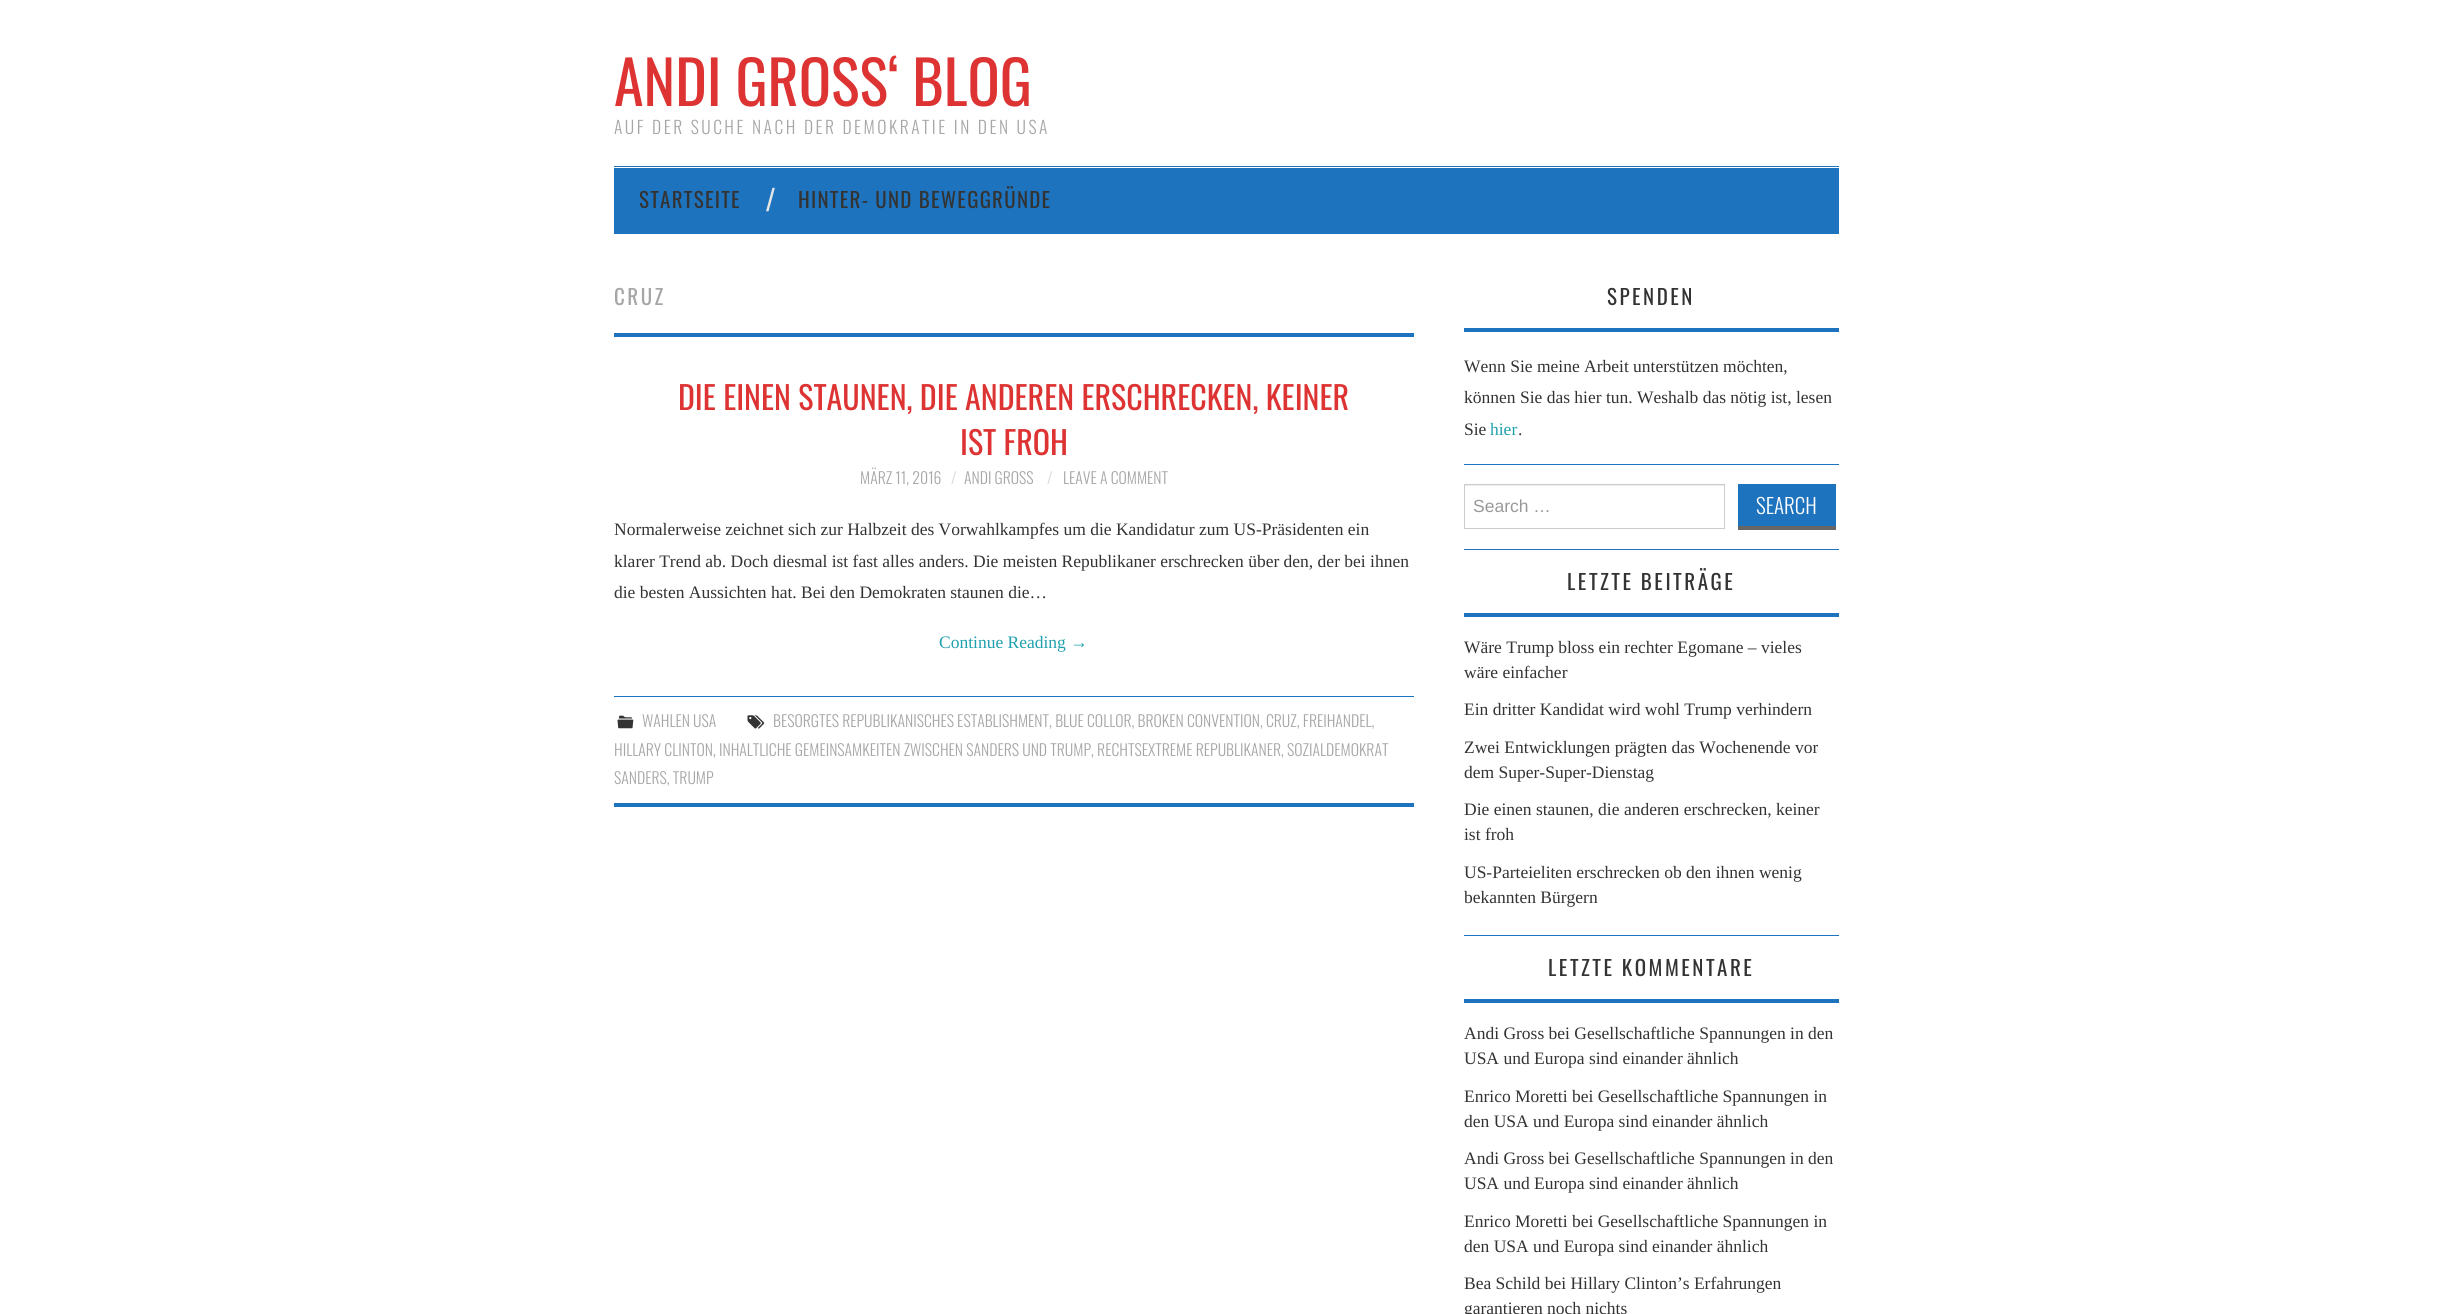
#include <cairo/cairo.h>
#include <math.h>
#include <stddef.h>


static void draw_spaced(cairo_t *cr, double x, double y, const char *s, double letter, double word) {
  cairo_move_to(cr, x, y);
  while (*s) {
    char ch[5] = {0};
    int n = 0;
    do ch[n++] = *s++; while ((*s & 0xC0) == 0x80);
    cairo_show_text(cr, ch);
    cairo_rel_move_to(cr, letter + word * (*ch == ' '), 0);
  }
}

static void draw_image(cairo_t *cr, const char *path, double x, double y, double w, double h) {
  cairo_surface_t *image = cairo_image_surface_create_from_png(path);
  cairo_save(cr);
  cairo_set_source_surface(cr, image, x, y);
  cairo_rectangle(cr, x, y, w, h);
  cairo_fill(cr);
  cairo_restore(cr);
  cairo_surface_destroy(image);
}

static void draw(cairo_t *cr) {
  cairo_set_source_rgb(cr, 1, 1, 1);
  cairo_paint(cr);
  cairo_set_source_rgb(cr, 30 / 255.0, 115 / 255.0, 190 / 255.0);
  cairo_rectangle(cr, 614, 166, 1225, 1);
  cairo_fill(cr);
  cairo_rectangle(cr, 614, 168, 1225, 66);
  cairo_fill(cr);
  cairo_rectangle(cr, 614, 333, 800, 4);
  cairo_fill(cr);
  cairo_rectangle(cr, 614, 696, 800, 1);
  cairo_fill(cr);
  cairo_rectangle(cr, 614, 803, 800, 4);
  cairo_fill(cr);
  draw_image(cr, "images/1.png", 747, 715, 18, 14);
  draw_image(cr, "images/2.png", 617, 715, 17, 14);
  cairo_rectangle(cr, 1464, 464, 375, 1);
  cairo_fill(cr);
  cairo_rectangle(cr, 1464, 328, 375, 4);
  cairo_fill(cr);
  cairo_rectangle(cr, 1464, 549, 375, 1);
  cairo_fill(cr);
  cairo_set_source_rgb(cr, 236 / 255.0, 236 / 255.0, 236 / 255.0);
  cairo_rectangle(cr, 1465, 485, 259, 1);
  cairo_fill(cr);
  cairo_rectangle(cr, 1464.5, 484.5, 260, 44);
  cairo_set_source_rgb(cr, 204 / 255.0, 204 / 255.0, 204 / 255.0);
  cairo_set_line_width(cr, 1);
  cairo_stroke(cr);
  cairo_set_source_rgb(cr, 30 / 255.0, 115 / 255.0, 190 / 255.0);
  cairo_rectangle(cr, 1738, 484, 98, 42);
  cairo_fill(cr);
  cairo_set_source_rgb(cr, 102 / 255.0, 102 / 255.0, 102 / 255.0);
  cairo_rectangle(cr, 1738, 526, 98, 4);
  cairo_fill(cr);
  cairo_set_source_rgb(cr, 30 / 255.0, 115 / 255.0, 190 / 255.0);
  cairo_rectangle(cr, 1464, 935, 375, 1);
  cairo_fill(cr);
  cairo_rectangle(cr, 1464, 613, 375, 4);
  cairo_fill(cr);
  cairo_rectangle(cr, 1464, 999, 375, 4);
  cairo_fill(cr);
  cairo_select_font_face(cr, "Oswald", CAIRO_FONT_SLANT_NORMAL, CAIRO_FONT_WEIGHT_NORMAL);
  cairo_set_font_size(cr, 60);
  cairo_set_source_rgb(cr, 221 / 255.0, 51 / 255.0, 51 / 255.0);
  cairo_move_to(cr, 614, 106);
  cairo_show_text(cr, "ANDI GROSS‘ BLOG");
  cairo_select_font_face(cr, "Oswald Light", CAIRO_FONT_SLANT_NORMAL, CAIRO_FONT_WEIGHT_NORMAL);
  cairo_set_font_size(cr, 17.5);
  cairo_set_source_rgb(cr, 166 / 255.0, 166 / 255.0, 166 / 255.0);
  draw_spaced(cr, 614, 134, "AUF DER SUCHE NACH DER DEMOKRATIE IN DEN USA", 2.5, 0);
  cairo_select_font_face(cr, "Oswald", CAIRO_FONT_SLANT_NORMAL, CAIRO_FONT_WEIGHT_NORMAL);
  cairo_set_font_size(cr, 21);
  cairo_set_source_rgb(cr, 51 / 255.0, 51 / 255.0, 51 / 255.0);
  draw_spaced(cr, 639, 208, "STARTSEITE", 1.25, 0);
  cairo_select_font_face(cr, "Liberation Sans", CAIRO_FONT_SLANT_NORMAL, CAIRO_FONT_WEIGHT_NORMAL);
  cairo_set_font_size(cr, 32);
  cairo_set_source_rgb(cr, 230 / 255.0, 230 / 255.0, 230 / 255.0);
  cairo_move_to(cr, 766, 211);
  cairo_show_text(cr, "/");
  cairo_select_font_face(cr, "Oswald", CAIRO_FONT_SLANT_NORMAL, CAIRO_FONT_WEIGHT_NORMAL);
  cairo_set_font_size(cr, 21);
  cairo_set_source_rgb(cr, 51 / 255.0, 51 / 255.0, 51 / 255.0);
  draw_spaced(cr, 798, 208, "HINTER- UND BEWEGGRÜNDE", 1.25, 0);
  cairo_set_source_rgb(cr, 166 / 255.0, 166 / 255.0, 166 / 255.0);
  draw_spaced(cr, 614, 305, "CRUZ", 2.5, 0);
  cairo_set_font_size(cr, 32);
  cairo_set_source_rgb(cr, 221 / 255.0, 51 / 255.0, 51 / 255.0);
  cairo_move_to(cr, 678, 410);
  cairo_show_text(cr, "DIE EINEN STAUNEN, DIE ANDEREN ERSCHRECKEN, KEINER");
  cairo_move_to(cr, 960, 455);
  cairo_show_text(cr, "IST FROH");
  cairo_select_font_face(cr, "Oswald Light", CAIRO_FONT_SLANT_NORMAL, CAIRO_FONT_WEIGHT_NORMAL);
  cairo_set_font_size(cr, 15.75);
  cairo_set_source_rgb(cr, 166 / 255.0, 166 / 255.0, 166 / 255.0);
  cairo_move_to(cr, 860, 484);
  cairo_show_text(cr, "MÄRZ 11, 2016");
  cairo_set_source_rgb(cr, 214 / 255.0, 214 / 255.0, 214 / 255.0);
  cairo_move_to(cr, 951, 484);
  cairo_show_text(cr, "/");
  cairo_set_source_rgb(cr, 166 / 255.0, 166 / 255.0, 166 / 255.0);
  cairo_move_to(cr, 964, 484);
  cairo_show_text(cr, "ANDI GROSS");
  cairo_set_source_rgb(cr, 214 / 255.0, 214 / 255.0, 214 / 255.0);
  cairo_move_to(cr, 1047, 484);
  cairo_show_text(cr, "/");
  cairo_set_source_rgb(cr, 166 / 255.0, 166 / 255.0, 166 / 255.0);
  cairo_move_to(cr, 1063, 484);
  cairo_show_text(cr, "LEAVE A COMMENT");
  cairo_select_font_face(cr, "Liberation Serif", CAIRO_FONT_SLANT_NORMAL, CAIRO_FONT_WEIGHT_NORMAL);
  cairo_set_font_size(cr, 17.5);
  cairo_set_source_rgb(cr, 51 / 255.0, 51 / 255.0, 51 / 255.0);
  cairo_move_to(cr, 614, 535);
  cairo_show_text(cr, "Normalerweise zeichnet sich zur Halbzeit des Vorwahlkampfes um die Kandidatur zum US-Präsidenten ein");
  cairo_move_to(cr, 614, 567);
  cairo_show_text(cr, "klarer Trend ab. Doch diesmal ist fast alles anders. Die meisten Republikaner erschrecken über den, der bei ihnen");
  cairo_move_to(cr, 614, 598);
  cairo_show_text(cr, "die besten Aussichten hat. Bei den Demokraten staunen die…");
  cairo_set_source_rgb(cr, 31 / 255.0, 160 / 255.0, 174 / 255.0);
  cairo_move_to(cr, 939, 648);
  cairo_show_text(cr, "Continue Reading →");
  cairo_select_font_face(cr, "Oswald Light", CAIRO_FONT_SLANT_NORMAL, CAIRO_FONT_WEIGHT_NORMAL);
  cairo_set_font_size(cr, 15.75);
  cairo_set_source_rgb(cr, 166 / 255.0, 166 / 255.0, 166 / 255.0);
  cairo_move_to(cr, 773, 727);
  cairo_show_text(cr, "BESORGTES REPUBLIKANISCHES ESTABLISHMENT, BLUE COLLOR, BROKEN CONVENTION, CRUZ, FREIHANDEL,");
  cairo_move_to(cr, 614, 756);
  cairo_show_text(cr, "HILLARY CLINTON, INHALTLICHE GEMEINSAMKEITEN ZWISCHEN SANDERS UND TRUMP, RECHTSEXTREME REPUBLIKANER, SOZIALDEMOKRAT");
  cairo_move_to(cr, 614, 784);
  cairo_show_text(cr, "SANDERS, TRUMP");
  cairo_move_to(cr, 642, 727);
  cairo_show_text(cr, "WAHLEN USA");
  cairo_select_font_face(cr, "Oswald", CAIRO_FONT_SLANT_NORMAL, CAIRO_FONT_WEIGHT_NORMAL);
  cairo_set_font_size(cr, 21);
  cairo_set_source_rgb(cr, 51 / 255.0, 51 / 255.0, 51 / 255.0);
  draw_spaced(cr, 1607, 305, "SPENDEN", 2.5, 0);
  cairo_select_font_face(cr, "Liberation Serif", CAIRO_FONT_SLANT_NORMAL, CAIRO_FONT_WEIGHT_NORMAL);
  cairo_set_font_size(cr, 17.5);
  cairo_move_to(cr, 1464, 372);
  cairo_show_text(cr, "Wenn Sie meine Arbeit unterstützen möchten,");
  cairo_move_to(cr, 1464, 403);
  cairo_show_text(cr, "können Sie das hier tun. Weshalb das nötig ist, lesen");
  cairo_move_to(cr, 1464, 435);
  cairo_show_text(cr, "Sie");
  cairo_set_source_rgb(cr, 31 / 255.0, 160 / 255.0, 174 / 255.0);
  cairo_move_to(cr, 1490, 435);
  cairo_show_text(cr, "hier");
  cairo_set_source_rgb(cr, 51 / 255.0, 51 / 255.0, 51 / 255.0);
  cairo_move_to(cr, 1518, 435);
  cairo_show_text(cr, ".");
  cairo_select_font_face(cr, "Liberation Sans", CAIRO_FONT_SLANT_NORMAL, CAIRO_FONT_WEIGHT_NORMAL);
  cairo_set_source_rgb(cr, 153 / 255.0, 153 / 255.0, 153 / 255.0);
  cairo_move_to(cr, 1473, 512);
  cairo_show_text(cr, "Search …");
  cairo_select_font_face(cr, "Oswald Light", CAIRO_FONT_SLANT_NORMAL, CAIRO_FONT_WEIGHT_NORMAL);
  cairo_set_font_size(cr, 21);
  cairo_set_source_rgb(cr, 1, 1, 1);
  cairo_move_to(cr, 1756, 514);
  cairo_show_text(cr, "SEARCH");
  cairo_select_font_face(cr, "Oswald", CAIRO_FONT_SLANT_NORMAL, CAIRO_FONT_WEIGHT_NORMAL);
  cairo_set_source_rgb(cr, 51 / 255.0, 51 / 255.0, 51 / 255.0);
  draw_spaced(cr, 1567, 590, "LETZTE BEITRÄGE", 2.5, 0);
  cairo_select_font_face(cr, "Liberation Serif", CAIRO_FONT_SLANT_NORMAL, CAIRO_FONT_WEIGHT_NORMAL);
  cairo_set_font_size(cr, 17.5);
  cairo_move_to(cr, 1464, 653);
  cairo_show_text(cr, "Wäre Trump bloss ein rechter Egomane – vieles");
  cairo_move_to(cr, 1464, 678);
  cairo_show_text(cr, "wäre einfacher");
  cairo_move_to(cr, 1464, 715);
  cairo_show_text(cr, "Ein dritter Kandidat wird wohl Trump verhindern");
  cairo_move_to(cr, 1464, 753);
  cairo_show_text(cr, "Zwei Entwicklungen prägten das Wochenende vor");
  cairo_move_to(cr, 1464, 778);
  cairo_show_text(cr, "dem Super-Super-Dienstag");
  cairo_move_to(cr, 1464, 815);
  cairo_show_text(cr, "Die einen staunen, die anderen erschrecken, keiner");
  cairo_move_to(cr, 1464, 840);
  cairo_show_text(cr, "ist froh");
  cairo_move_to(cr, 1464, 878);
  cairo_show_text(cr, "US-Parteieliten erschrecken ob den ihnen wenig");
  cairo_move_to(cr, 1464, 903);
  cairo_show_text(cr, "bekannten Bürgern");
  cairo_select_font_face(cr, "Oswald", CAIRO_FONT_SLANT_NORMAL, CAIRO_FONT_WEIGHT_NORMAL);
  cairo_set_font_size(cr, 21);
  draw_spaced(cr, 1548, 976, "LETZTE KOMMENTARE", 2.5, 0);
  cairo_select_font_face(cr, "Liberation Serif", CAIRO_FONT_SLANT_NORMAL, CAIRO_FONT_WEIGHT_NORMAL);
  cairo_set_font_size(cr, 17.5);
  cairo_move_to(cr, 1464, 1039);
  cairo_show_text(cr, "Andi Gross bei Gesellschaftliche Spannungen in den");
  cairo_move_to(cr, 1464, 1064);
  cairo_show_text(cr, "USA und Europa sind einander ähnlich");
  cairo_move_to(cr, 1464, 1102);
  cairo_show_text(cr, "Enrico Moretti bei Gesellschaftliche Spannungen in");
  cairo_move_to(cr, 1464, 1127);
  cairo_show_text(cr, "den USA und Europa sind einander ähnlich");
  cairo_move_to(cr, 1464, 1164);
  cairo_show_text(cr, "Andi Gross bei Gesellschaftliche Spannungen in den");
  cairo_move_to(cr, 1464, 1189);
  cairo_show_text(cr, "USA und Europa sind einander ähnlich");
  cairo_move_to(cr, 1464, 1227);
  cairo_show_text(cr, "Enrico Moretti bei Gesellschaftliche Spannungen in");
  cairo_move_to(cr, 1464, 1252);
  cairo_show_text(cr, "den USA und Europa sind einander ähnlich");
  cairo_move_to(cr, 1464, 1289);
  cairo_show_text(cr, "Bea Schild bei Hillary Clinton’s Erfahrungen");
  cairo_move_to(cr, 1464, 1314);
  cairo_show_text(cr, "garantieren noch nichts");
}

int main(void) {
  cairo_surface_t *surface = cairo_image_surface_create(CAIRO_FORMAT_RGB24, 2452, 1314);
  cairo_t *cr = cairo_create(surface);
  cairo_font_options_t *options = cairo_font_options_create();
  cairo_font_options_set_hint_metrics(options, CAIRO_HINT_METRICS_OFF);
  cairo_font_options_set_hint_style(options, CAIRO_HINT_STYLE_NONE);
  cairo_set_font_options(cr, options);
  cairo_set_miter_limit(cr, 4);
  draw(cr);
  cairo_surface_write_to_png(surface, "out.png");
  cairo_font_options_destroy(options);
  cairo_destroy(cr);
  cairo_surface_destroy(surface);
  return 0;
}
